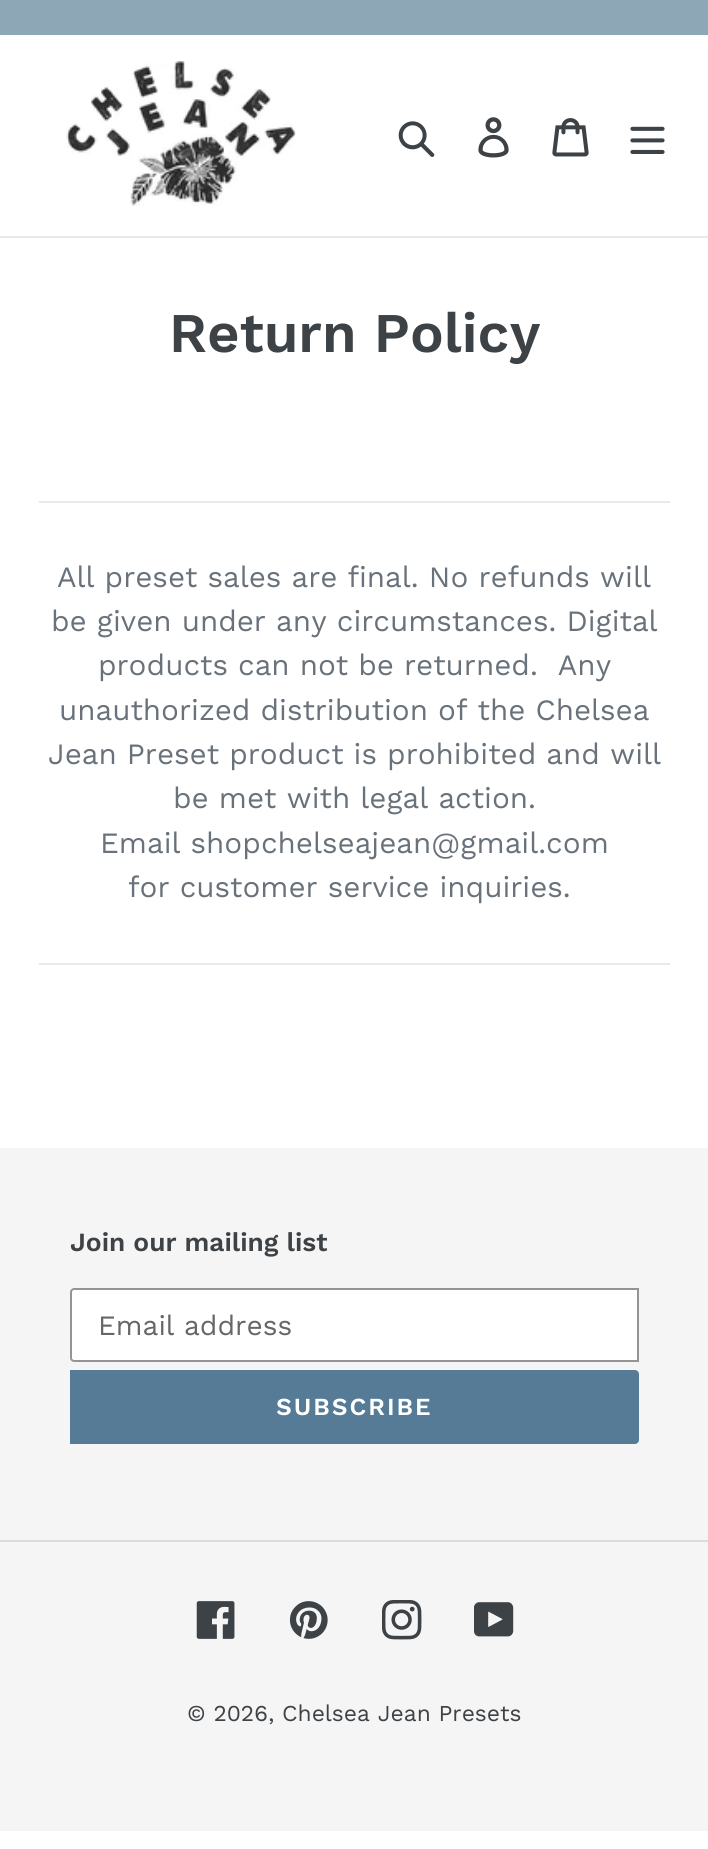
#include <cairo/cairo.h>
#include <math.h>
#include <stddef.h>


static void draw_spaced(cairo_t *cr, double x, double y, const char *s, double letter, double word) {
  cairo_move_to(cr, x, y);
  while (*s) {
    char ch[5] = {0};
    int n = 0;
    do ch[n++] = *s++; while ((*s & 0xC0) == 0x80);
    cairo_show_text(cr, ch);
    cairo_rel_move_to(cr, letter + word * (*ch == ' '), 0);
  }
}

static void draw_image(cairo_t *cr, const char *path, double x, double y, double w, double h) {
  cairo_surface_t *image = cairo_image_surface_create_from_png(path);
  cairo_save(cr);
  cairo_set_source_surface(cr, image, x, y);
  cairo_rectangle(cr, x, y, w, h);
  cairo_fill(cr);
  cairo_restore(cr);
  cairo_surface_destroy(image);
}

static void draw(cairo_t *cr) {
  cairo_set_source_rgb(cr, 1, 1, 1);
  cairo_paint(cr);
  cairo_set_source_rgb(cr, 141 / 255.0, 167 / 255.0, 182 / 255.0);
  cairo_rectangle(cr, 0, 0, 708, 35);
  cairo_fill(cr);
  cairo_set_source_rgb(cr, 232 / 255.0, 233 / 255.0, 235 / 255.0);
  cairo_rectangle(cr, 0, 236, 708, 2);
  cairo_fill(cr);
  draw_image(cr, "images/1.png", 66, 61, 230, 145);
  draw_image(cr, "images/2.png", 398, 121, 37, 36);
  draw_image(cr, "images/3.png", 478, 117, 31, 41);
  draw_image(cr, "images/4.png", 552, 118, 37, 39);
  draw_image(cr, "images/5.png", 630, 126, 35, 28);
  cairo_rectangle(cr, 39, 501, 631, 2);
  cairo_fill(cr);
  cairo_rectangle(cr, 39, 963, 631, 2);
  cairo_fill(cr);
  cairo_set_source_rgb(cr, 245 / 255.0, 245 / 255.0, 245 / 255.0);
  cairo_rectangle(cr, 0, 1148, 708, 683);
  cairo_fill(cr);
  cairo_set_source_rgb(cr, 1, 1, 1);
  cairo_new_path(cr);
  cairo_move_to(cr, 74, 1289);
  cairo_line_to(cr, 638, 1289);
  cairo_line_to(cr, 638, 1361);
  cairo_line_to(cr, 74, 1361);
  cairo_curve_to(cr, 72.5, 1361, 71, 1359.5, 71, 1358);
  cairo_line_to(cr, 71, 1292);
  cairo_curve_to(cr, 71, 1290.5, 72.5, 1289, 74, 1289);
  cairo_close_path(cr);
  cairo_fill_preserve(cr);
  cairo_set_source_rgb(cr, 148 / 255.0, 148 / 255.0, 148 / 255.0);
  cairo_stroke(cr);
  cairo_set_source_rgb(cr, 85 / 255.0, 123 / 255.0, 151 / 255.0);
  cairo_new_path(cr);
  cairo_move_to(cr, 70, 1370);
  cairo_line_to(cr, 635, 1370);
  cairo_curve_to(cr, 637, 1370, 639, 1372, 639, 1374);
  cairo_line_to(cr, 639, 1440);
  cairo_curve_to(cr, 639, 1442, 637, 1444, 635, 1444);
  cairo_line_to(cr, 70, 1444);
  cairo_close_path(cr);
  cairo_fill(cr);
  cairo_set_source_rgb(cr, 220 / 255.0, 220 / 255.0, 220 / 255.0);
  cairo_rectangle(cr, 0, 1540, 708, 2);
  cairo_fill(cr);
  draw_image(cr, "images/6.png", 196, 1601, 39, 38);
  draw_image(cr, "images/7.png", 289, 1601, 39, 38);
  draw_image(cr, "images/8.png", 382, 1600, 40, 40);
  draw_image(cr, "images/9.png", 474, 1602, 40, 35);
  cairo_select_font_face(cr, "Work Sans SemiBold", CAIRO_FONT_SLANT_NORMAL, CAIRO_FONT_WEIGHT_NORMAL);
  cairo_set_font_size(cr, 56);
  cairo_set_source_rgb(cr, 61 / 255.0, 66 / 255.0, 70 / 255.0);
  cairo_move_to(cr, 169, 352);
  cairo_show_text(cr, "Return Policy");
  cairo_select_font_face(cr, "Work Sans", CAIRO_FONT_SLANT_NORMAL, CAIRO_FONT_WEIGHT_NORMAL);
  cairo_set_font_size(cr, 29.5);
  cairo_set_source_rgb(cr, 105 / 255.0, 114 / 255.0, 123 / 255.0);
  cairo_move_to(cr, 57, 587);
  cairo_show_text(cr, "All preset sales are final. No refunds will");
  cairo_move_to(cr, 51, 631);
  cairo_show_text(cr, "be given under any circumstances. Digital");
  cairo_move_to(cr, 98, 675);
  cairo_show_text(cr, "products can not be returned.  Any");
  cairo_move_to(cr, 59, 720);
  cairo_show_text(cr, "unauthorized distribution of the Chelsea");
  cairo_move_to(cr, 48, 764);
  cairo_show_text(cr, "Jean Preset product is prohibited and will");
  cairo_move_to(cr, 173, 808);
  cairo_show_text(cr, "be met with legal action.");
  cairo_move_to(cr, 100, 853);
  cairo_show_text(cr, "Email shopchelseajean@gmail.com");
  cairo_move_to(cr, 128, 897);
  cairo_show_text(cr, "for customer service inquiries.");
  cairo_select_font_face(cr, "Work Sans SemiBold", CAIRO_FONT_SLANT_NORMAL, CAIRO_FONT_WEIGHT_NORMAL);
  cairo_set_font_size(cr, 26.25);
  cairo_set_source_rgb(cr, 61 / 255.0, 66 / 255.0, 70 / 255.0);
  cairo_move_to(cr, 70, 1251);
  cairo_show_text(cr, "Join our mailing list");
  cairo_select_font_face(cr, "Work Sans", CAIRO_FONT_SLANT_NORMAL, CAIRO_FONT_WEIGHT_NORMAL);
  cairo_set_font_size(cr, 28);
  cairo_set_source_rgb(cr, 102 / 255.0, 102 / 255.0, 102 / 255.0);
  cairo_move_to(cr, 98, 1335);
  cairo_show_text(cr, "Email address");
  cairo_select_font_face(cr, "Work Sans SemiBold", CAIRO_FONT_SLANT_NORMAL, CAIRO_FONT_WEIGHT_NORMAL);
  cairo_set_font_size(cr, 24.5);
  cairo_set_source_rgb(cr, 1, 1, 1);
  draw_spaced(cr, 276, 1415, "SUBSCRIBE", 2, 0);
  cairo_select_font_face(cr, "Work Sans", CAIRO_FONT_SLANT_NORMAL, CAIRO_FONT_WEIGHT_NORMAL);
  cairo_set_font_size(cr, 22.75);
  cairo_set_source_rgb(cr, 61 / 255.0, 66 / 255.0, 70 / 255.0);
  cairo_move_to(cr, 187, 1721);
  cairo_show_text(cr, "© 2026, Chelsea Jean Presets");
}

int main(void) {
  cairo_surface_t *surface = cairo_image_surface_create(CAIRO_FORMAT_RGB24, 708, 1849);
  cairo_t *cr = cairo_create(surface);
  cairo_font_options_t *options = cairo_font_options_create();
  cairo_font_options_set_hint_metrics(options, CAIRO_HINT_METRICS_OFF);
  cairo_font_options_set_hint_style(options, CAIRO_HINT_STYLE_NONE);
  cairo_set_font_options(cr, options);
  cairo_set_miter_limit(cr, 4);
  draw(cr);
  cairo_surface_write_to_png(surface, "out.png");
  cairo_font_options_destroy(options);
  cairo_destroy(cr);
  cairo_surface_destroy(surface);
  return 0;
}
